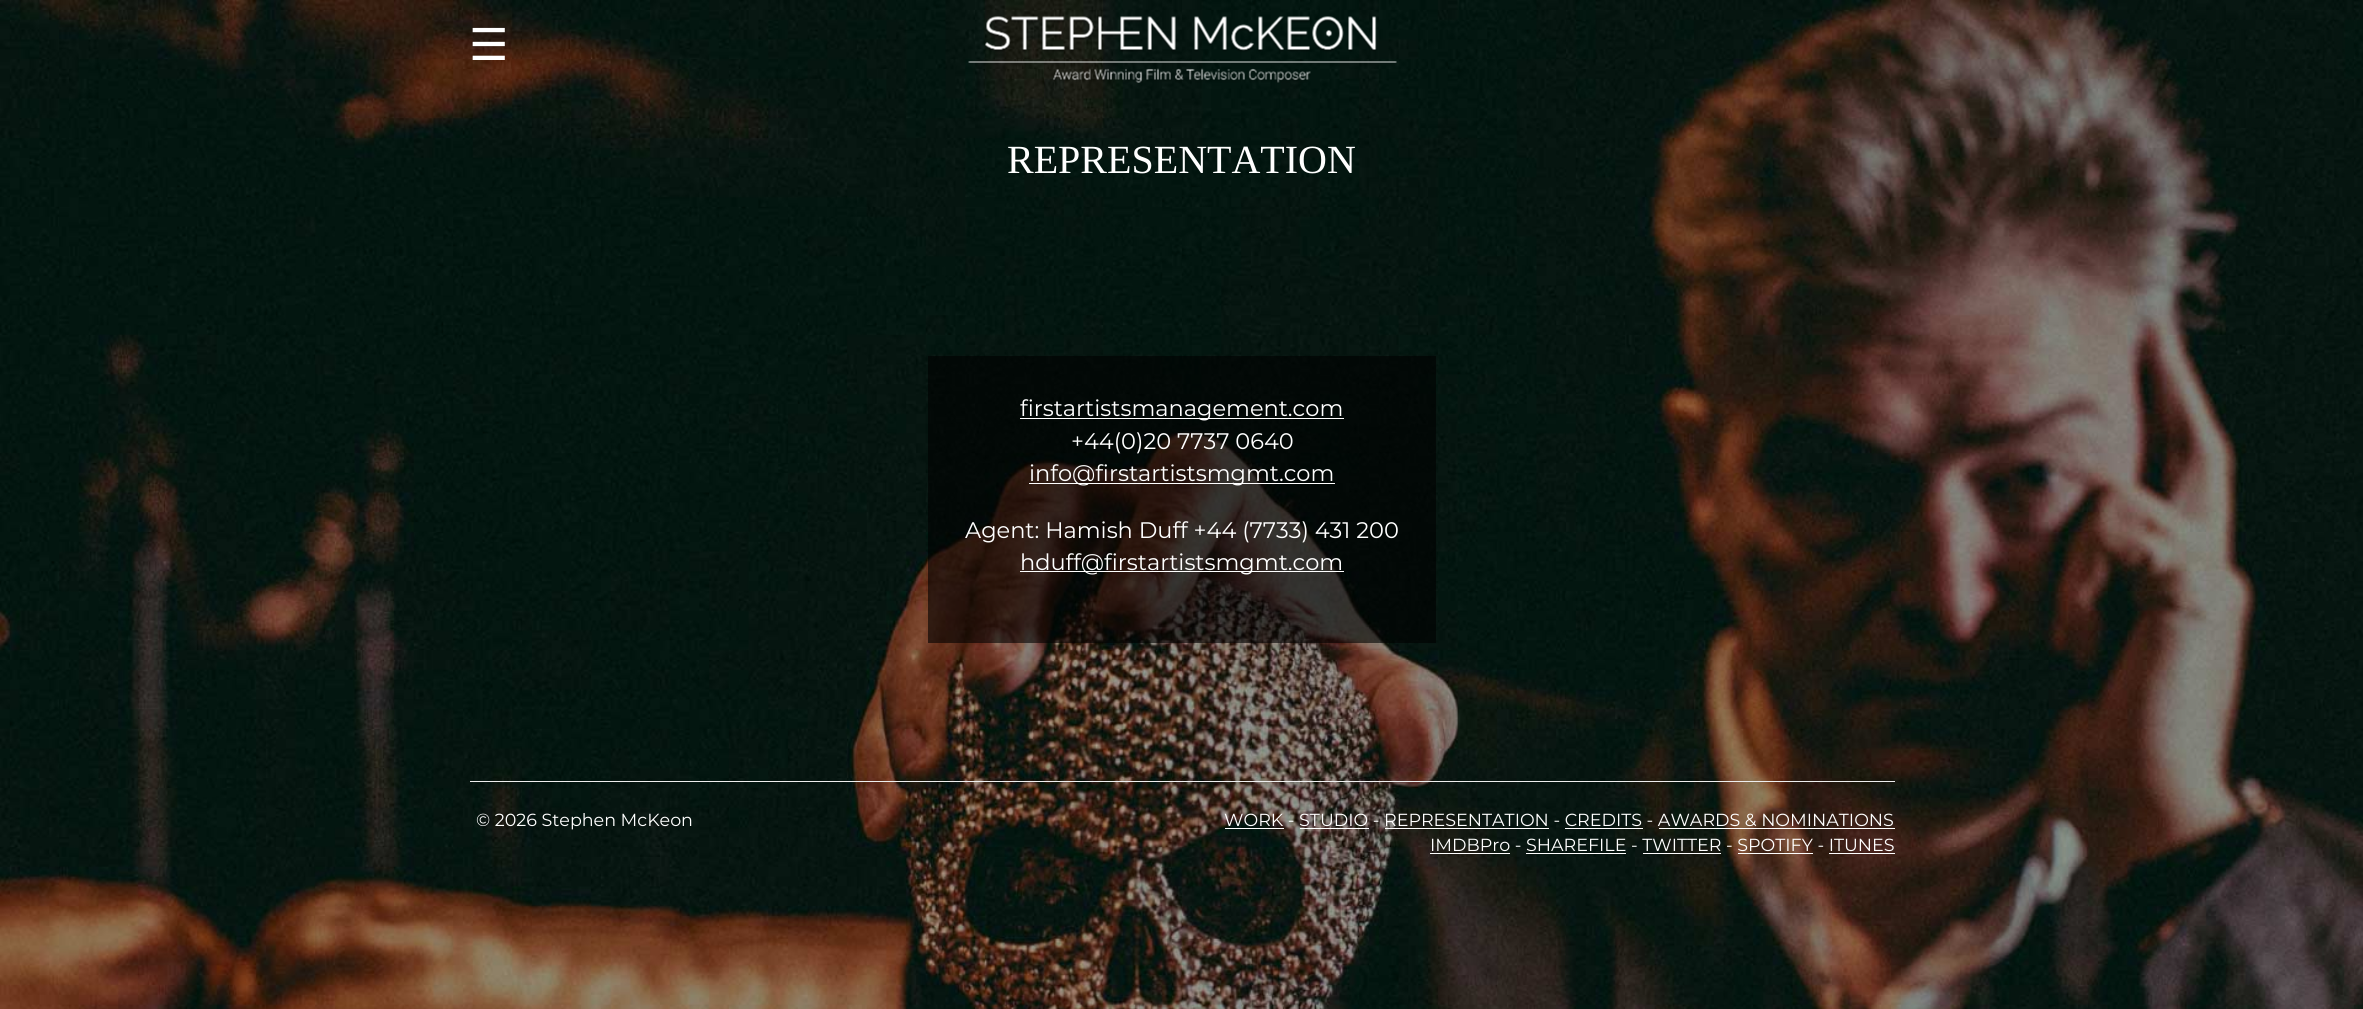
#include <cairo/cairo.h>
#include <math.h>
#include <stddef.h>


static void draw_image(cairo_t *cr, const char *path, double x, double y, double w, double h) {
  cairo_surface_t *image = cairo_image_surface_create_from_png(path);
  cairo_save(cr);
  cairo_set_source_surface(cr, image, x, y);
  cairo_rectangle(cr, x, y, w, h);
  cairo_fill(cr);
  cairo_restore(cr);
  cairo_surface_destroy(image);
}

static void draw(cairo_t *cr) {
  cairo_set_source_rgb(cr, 1, 1, 1);
  cairo_paint(cr);
  draw_image(cr, "images/1.png", 0, 0, 2363, 1009);
  draw_image(cr, "images/2.png", 968, 16, 429, 67);
  cairo_set_source_rgba(cr, 0, 0, 0, 0.6);
  cairo_rectangle(cr, 928, 356, 508, 287);
  cairo_fill(cr);
  cairo_set_source_rgb(cr, 1, 1, 1);
  cairo_rectangle(cr, 1020, 418, 324, 1);
  cairo_fill(cr);
  cairo_rectangle(cr, 1029, 483, 306, 1);
  cairo_fill(cr);
  cairo_rectangle(cr, 1020, 571, 324, 1);
  cairo_fill(cr);
  cairo_set_source_rgb(cr, 238 / 255.0, 238 / 255.0, 238 / 255.0);
  cairo_rectangle(cr, 470, 781, 1425, 1);
  cairo_fill(cr);
  cairo_set_source_rgb(cr, 1, 1, 1);
  cairo_rectangle(cr, 1225, 828, 59, 1);
  cairo_fill(cr);
  cairo_rectangle(cr, 1300, 828, 69, 1);
  cairo_fill(cr);
  cairo_rectangle(cr, 1385, 828, 164, 1);
  cairo_fill(cr);
  cairo_rectangle(cr, 1565, 828, 78, 1);
  cairo_fill(cr);
  cairo_rectangle(cr, 1659, 828, 236, 1);
  cairo_fill(cr);
  cairo_rectangle(cr, 1430, 853, 80, 1);
  cairo_fill(cr);
  cairo_rectangle(cr, 1526, 853, 100, 1);
  cairo_fill(cr);
  cairo_rectangle(cr, 1643, 853, 78, 1);
  cairo_fill(cr);
  cairo_rectangle(cr, 1738, 853, 75, 1);
  cairo_fill(cr);
  cairo_rectangle(cr, 1829, 853, 66, 1);
  cairo_fill(cr);
  cairo_select_font_face(cr, "DejaVu Sans", CAIRO_FONT_SLANT_NORMAL, CAIRO_FONT_WEIGHT_NORMAL);
  cairo_set_font_size(cr, 44);
  cairo_move_to(cr, 469, 60);
  cairo_show_text(cr, "☰");
  cairo_select_font_face(cr, "Liberation Serif", CAIRO_FONT_SLANT_NORMAL, CAIRO_FONT_WEIGHT_NORMAL);
  cairo_set_font_size(cr, 40);
  cairo_move_to(cr, 1007, 173);
  cairo_show_text(cr, "REPRESENTATION");
  cairo_select_font_face(cr, "Montserrat", CAIRO_FONT_SLANT_NORMAL, CAIRO_FONT_WEIGHT_NORMAL);
  cairo_set_font_size(cr, 22.5);
  cairo_move_to(cr, 1020, 416);
  cairo_show_text(cr, "firstartistsmanagement.com");
  cairo_move_to(cr, 1071, 449);
  cairo_show_text(cr, "+44(0)20 7737 0640");
  cairo_move_to(cr, 1029, 481);
  cairo_show_text(cr, "info@firstartistsmgmt.com");
  cairo_move_to(cr, 965, 538);
  cairo_show_text(cr, "Agent: Hamish Duff +44 (7733) 431 200");
  cairo_move_to(cr, 1020, 570);
  cairo_show_text(cr, "hduff@firstartistsmgmt.com");
  cairo_set_font_size(cr, 17.5);
  cairo_move_to(cr, 476, 826);
  cairo_show_text(cr, "© 2026 Stephen McKeon");
  cairo_move_to(cr, 1224, 826);
  cairo_show_text(cr, "WORK - STUDIO - REPRESENTATION - CREDITS - AWARDS & NOMINATIONS");
  cairo_move_to(cr, 1430, 851);
  cairo_show_text(cr, "IMDBPro - SHAREFILE - TWITTER - SPOTIFY - ITUNES");
}

int main(void) {
  cairo_surface_t *surface = cairo_image_surface_create(CAIRO_FORMAT_RGB24, 2363, 1009);
  cairo_t *cr = cairo_create(surface);
  cairo_font_options_t *options = cairo_font_options_create();
  cairo_font_options_set_hint_metrics(options, CAIRO_HINT_METRICS_OFF);
  cairo_font_options_set_hint_style(options, CAIRO_HINT_STYLE_NONE);
  cairo_set_font_options(cr, options);
  cairo_set_miter_limit(cr, 4);
  draw(cr);
  cairo_surface_write_to_png(surface, "out.png");
  cairo_font_options_destroy(options);
  cairo_destroy(cr);
  cairo_surface_destroy(surface);
  return 0;
}
